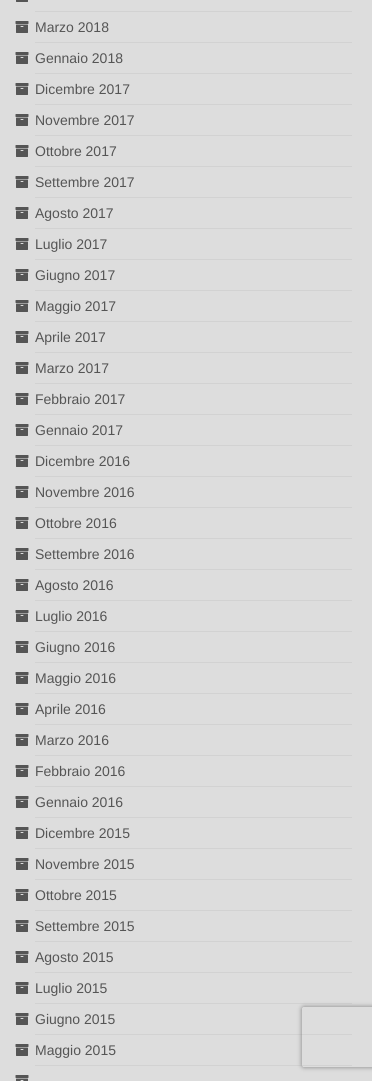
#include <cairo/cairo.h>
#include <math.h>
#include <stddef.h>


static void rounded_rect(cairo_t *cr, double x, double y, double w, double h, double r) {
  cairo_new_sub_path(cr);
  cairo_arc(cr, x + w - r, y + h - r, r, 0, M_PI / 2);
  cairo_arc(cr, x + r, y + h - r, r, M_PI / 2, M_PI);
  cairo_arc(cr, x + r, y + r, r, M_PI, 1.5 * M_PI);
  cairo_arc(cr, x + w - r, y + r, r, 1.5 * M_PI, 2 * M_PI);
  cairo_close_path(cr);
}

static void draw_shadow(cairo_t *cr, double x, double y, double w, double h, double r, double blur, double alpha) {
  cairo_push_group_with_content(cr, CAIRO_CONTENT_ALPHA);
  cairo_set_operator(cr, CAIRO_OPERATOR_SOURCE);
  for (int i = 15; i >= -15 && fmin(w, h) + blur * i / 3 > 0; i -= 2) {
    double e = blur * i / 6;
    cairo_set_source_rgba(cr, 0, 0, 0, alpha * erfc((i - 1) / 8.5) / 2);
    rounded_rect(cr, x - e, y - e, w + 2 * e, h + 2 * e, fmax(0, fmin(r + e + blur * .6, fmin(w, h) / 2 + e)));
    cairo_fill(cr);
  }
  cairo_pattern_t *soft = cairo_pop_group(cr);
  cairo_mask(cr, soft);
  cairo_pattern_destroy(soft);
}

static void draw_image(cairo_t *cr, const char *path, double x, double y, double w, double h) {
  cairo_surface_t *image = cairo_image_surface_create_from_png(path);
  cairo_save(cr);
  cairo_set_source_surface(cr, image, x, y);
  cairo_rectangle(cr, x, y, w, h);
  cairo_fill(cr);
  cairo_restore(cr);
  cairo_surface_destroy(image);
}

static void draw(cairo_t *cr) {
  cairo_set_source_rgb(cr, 221 / 255.0, 221 / 255.0, 221 / 255.0);
  cairo_paint(cr);
  cairo_set_source_rgb(cr, 210 / 255.0, 210 / 255.0, 210 / 255.0);
  cairo_rectangle(cr, 35, 11, 317, 1);
  cairo_fill(cr);
  draw_image(cr, "images/1.png", 16, 0, 12, 2);
  cairo_rectangle(cr, 35, 42, 317, 1);
  cairo_fill(cr);
  draw_image(cr, "images/2.png", 15, 21, 14, 12);
  cairo_rectangle(cr, 35, 73, 317, 1);
  cairo_fill(cr);
  draw_image(cr, "images/2.png", 15, 52, 14, 12);
  cairo_rectangle(cr, 35, 104, 317, 1);
  cairo_fill(cr);
  draw_image(cr, "images/2.png", 15, 83, 14, 12);
  cairo_rectangle(cr, 35, 135, 317, 1);
  cairo_fill(cr);
  draw_image(cr, "images/2.png", 15, 114, 14, 12);
  cairo_rectangle(cr, 35, 166, 317, 1);
  cairo_fill(cr);
  draw_image(cr, "images/2.png", 15, 145, 14, 12);
  cairo_rectangle(cr, 35, 197, 317, 1);
  cairo_fill(cr);
  draw_image(cr, "images/2.png", 15, 176, 14, 12);
  cairo_rectangle(cr, 35, 228, 317, 1);
  cairo_fill(cr);
  draw_image(cr, "images/2.png", 15, 207, 14, 12);
  cairo_rectangle(cr, 35, 259, 317, 1);
  cairo_fill(cr);
  draw_image(cr, "images/2.png", 15, 238, 14, 12);
  cairo_rectangle(cr, 35, 290, 317, 1);
  cairo_fill(cr);
  draw_image(cr, "images/2.png", 15, 269, 14, 12);
  cairo_rectangle(cr, 35, 321, 317, 1);
  cairo_fill(cr);
  draw_image(cr, "images/2.png", 15, 300, 14, 12);
  cairo_rectangle(cr, 35, 352, 317, 1);
  cairo_fill(cr);
  draw_image(cr, "images/2.png", 15, 331, 14, 12);
  cairo_rectangle(cr, 35, 383, 317, 1);
  cairo_fill(cr);
  draw_image(cr, "images/2.png", 15, 362, 14, 12);
  cairo_rectangle(cr, 35, 414, 317, 1);
  cairo_fill(cr);
  draw_image(cr, "images/2.png", 15, 393, 14, 12);
  cairo_rectangle(cr, 35, 445, 317, 1);
  cairo_fill(cr);
  draw_image(cr, "images/2.png", 15, 424, 14, 12);
  cairo_rectangle(cr, 35, 476, 317, 1);
  cairo_fill(cr);
  draw_image(cr, "images/2.png", 15, 455, 14, 12);
  cairo_rectangle(cr, 35, 507, 317, 1);
  cairo_fill(cr);
  draw_image(cr, "images/2.png", 15, 486, 14, 12);
  cairo_rectangle(cr, 35, 538, 317, 1);
  cairo_fill(cr);
  draw_image(cr, "images/2.png", 15, 517, 14, 12);
  cairo_rectangle(cr, 35, 569, 317, 1);
  cairo_fill(cr);
  draw_image(cr, "images/2.png", 15, 548, 14, 12);
  cairo_rectangle(cr, 35, 600, 317, 1);
  cairo_fill(cr);
  draw_image(cr, "images/2.png", 15, 579, 14, 12);
  cairo_rectangle(cr, 35, 631, 317, 1);
  cairo_fill(cr);
  draw_image(cr, "images/2.png", 15, 610, 14, 12);
  cairo_rectangle(cr, 35, 662, 317, 1);
  cairo_fill(cr);
  draw_image(cr, "images/2.png", 15, 641, 14, 12);
  cairo_rectangle(cr, 35, 693, 317, 1);
  cairo_fill(cr);
  draw_image(cr, "images/2.png", 15, 672, 14, 12);
  cairo_rectangle(cr, 35, 724, 317, 1);
  cairo_fill(cr);
  draw_image(cr, "images/2.png", 15, 703, 14, 12);
  cairo_rectangle(cr, 35, 755, 317, 1);
  cairo_fill(cr);
  draw_image(cr, "images/2.png", 15, 734, 14, 12);
  cairo_rectangle(cr, 35, 786, 317, 1);
  cairo_fill(cr);
  draw_image(cr, "images/2.png", 15, 765, 14, 12);
  cairo_rectangle(cr, 35, 817, 317, 1);
  cairo_fill(cr);
  draw_image(cr, "images/2.png", 15, 796, 14, 12);
  cairo_rectangle(cr, 35, 848, 317, 1);
  cairo_fill(cr);
  draw_image(cr, "images/2.png", 15, 827, 14, 12);
  cairo_rectangle(cr, 35, 879, 317, 1);
  cairo_fill(cr);
  draw_image(cr, "images/2.png", 15, 858, 14, 12);
  cairo_rectangle(cr, 35, 910, 317, 1);
  cairo_fill(cr);
  draw_image(cr, "images/2.png", 15, 889, 14, 12);
  cairo_rectangle(cr, 35, 941, 317, 1);
  cairo_fill(cr);
  draw_image(cr, "images/2.png", 15, 920, 14, 12);
  cairo_rectangle(cr, 35, 972, 317, 1);
  cairo_fill(cr);
  draw_image(cr, "images/2.png", 15, 951, 14, 12);
  cairo_rectangle(cr, 35, 1003, 317, 1);
  cairo_fill(cr);
  draw_image(cr, "images/2.png", 15, 982, 14, 12);
  cairo_rectangle(cr, 35, 1034, 317, 1);
  cairo_fill(cr);
  draw_image(cr, "images/2.png", 15, 1013, 14, 12);
  cairo_rectangle(cr, 35, 1065, 317, 1);
  cairo_fill(cr);
  draw_image(cr, "images/2.png", 15, 1044, 14, 12);
  draw_image(cr, "images/3.png", 15, 1075, 14, 6);
  cairo_save(cr);
  cairo_set_fill_rule(cr, CAIRO_FILL_RULE_EVEN_ODD);
  cairo_new_path(cr);
  cairo_move_to(cr, 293, 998);
  cairo_line_to(cr, 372, 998);
  cairo_line_to(cr, 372, 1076);
  cairo_line_to(cr, 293, 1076);
  cairo_close_path(cr);
  cairo_move_to(cr, 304, 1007);
  cairo_line_to(cr, 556, 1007);
  cairo_curve_to(cr, 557, 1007, 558, 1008, 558, 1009);
  cairo_line_to(cr, 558, 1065);
  cairo_curve_to(cr, 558, 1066, 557, 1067, 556, 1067);
  cairo_line_to(cr, 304, 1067);
  cairo_curve_to(cr, 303, 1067, 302, 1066, 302, 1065);
  cairo_line_to(cr, 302, 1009);
  cairo_curve_to(cr, 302, 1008, 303, 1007, 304, 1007);
  cairo_close_path(cr);
  cairo_clip(cr);
  cairo_set_source_rgb(cr, 128 / 255.0, 128 / 255.0, 128 / 255.0);
  draw_shadow(cr, 302, 1007, 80, 60, 2, 2.5, 1);
  cairo_restore(cr);
  cairo_select_font_face(cr, "Liberation Sans", CAIRO_FONT_SLANT_NORMAL, CAIRO_FONT_WEIGHT_NORMAL);
  cairo_set_font_size(cr, 14);
  cairo_set_source_rgb(cr, 85 / 255.0, 85 / 255.0, 85 / 255.0);
  cairo_move_to(cr, 35, 32);
  cairo_show_text(cr, "Marzo 2018");
  cairo_move_to(cr, 35, 63);
  cairo_show_text(cr, "Gennaio 2018");
  cairo_move_to(cr, 35, 94);
  cairo_show_text(cr, "Dicembre 2017");
  cairo_move_to(cr, 35, 125);
  cairo_show_text(cr, "Novembre 2017");
  cairo_move_to(cr, 35, 156);
  cairo_show_text(cr, "Ottobre 2017");
  cairo_move_to(cr, 35, 187);
  cairo_show_text(cr, "Settembre 2017");
  cairo_move_to(cr, 35, 218);
  cairo_show_text(cr, "Agosto 2017");
  cairo_move_to(cr, 35, 249);
  cairo_show_text(cr, "Luglio 2017");
  cairo_move_to(cr, 35, 280);
  cairo_show_text(cr, "Giugno 2017");
  cairo_move_to(cr, 35, 311);
  cairo_show_text(cr, "Maggio 2017");
  cairo_move_to(cr, 35, 342);
  cairo_show_text(cr, "Aprile 2017");
  cairo_move_to(cr, 35, 373);
  cairo_show_text(cr, "Marzo 2017");
  cairo_move_to(cr, 35, 404);
  cairo_show_text(cr, "Febbraio 2017");
  cairo_move_to(cr, 35, 435);
  cairo_show_text(cr, "Gennaio 2017");
  cairo_move_to(cr, 35, 466);
  cairo_show_text(cr, "Dicembre 2016");
  cairo_move_to(cr, 35, 497);
  cairo_show_text(cr, "Novembre 2016");
  cairo_move_to(cr, 35, 528);
  cairo_show_text(cr, "Ottobre 2016");
  cairo_move_to(cr, 35, 559);
  cairo_show_text(cr, "Settembre 2016");
  cairo_move_to(cr, 35, 590);
  cairo_show_text(cr, "Agosto 2016");
  cairo_move_to(cr, 35, 621);
  cairo_show_text(cr, "Luglio 2016");
  cairo_move_to(cr, 35, 652);
  cairo_show_text(cr, "Giugno 2016");
  cairo_move_to(cr, 35, 683);
  cairo_show_text(cr, "Maggio 2016");
  cairo_move_to(cr, 35, 714);
  cairo_show_text(cr, "Aprile 2016");
  cairo_move_to(cr, 35, 745);
  cairo_show_text(cr, "Marzo 2016");
  cairo_move_to(cr, 35, 776);
  cairo_show_text(cr, "Febbraio 2016");
  cairo_move_to(cr, 35, 807);
  cairo_show_text(cr, "Gennaio 2016");
  cairo_move_to(cr, 35, 838);
  cairo_show_text(cr, "Dicembre 2015");
  cairo_move_to(cr, 35, 869);
  cairo_show_text(cr, "Novembre 2015");
  cairo_move_to(cr, 35, 900);
  cairo_show_text(cr, "Ottobre 2015");
  cairo_move_to(cr, 35, 931);
  cairo_show_text(cr, "Settembre 2015");
  cairo_move_to(cr, 35, 962);
  cairo_show_text(cr, "Agosto 2015");
  cairo_move_to(cr, 35, 993);
  cairo_show_text(cr, "Luglio 2015");
  cairo_move_to(cr, 35, 1024);
  cairo_show_text(cr, "Giugno 2015");
  cairo_move_to(cr, 35, 1055);
  cairo_show_text(cr, "Maggio 2015");
}

int main(void) {
  cairo_surface_t *surface = cairo_image_surface_create(CAIRO_FORMAT_RGB24, 372, 1081);
  cairo_t *cr = cairo_create(surface);
  cairo_font_options_t *options = cairo_font_options_create();
  cairo_font_options_set_hint_metrics(options, CAIRO_HINT_METRICS_OFF);
  cairo_font_options_set_hint_style(options, CAIRO_HINT_STYLE_NONE);
  cairo_set_font_options(cr, options);
  cairo_set_miter_limit(cr, 4);
  draw(cr);
  cairo_surface_write_to_png(surface, "out.png");
  cairo_font_options_destroy(options);
  cairo_destroy(cr);
  cairo_surface_destroy(surface);
  return 0;
}
